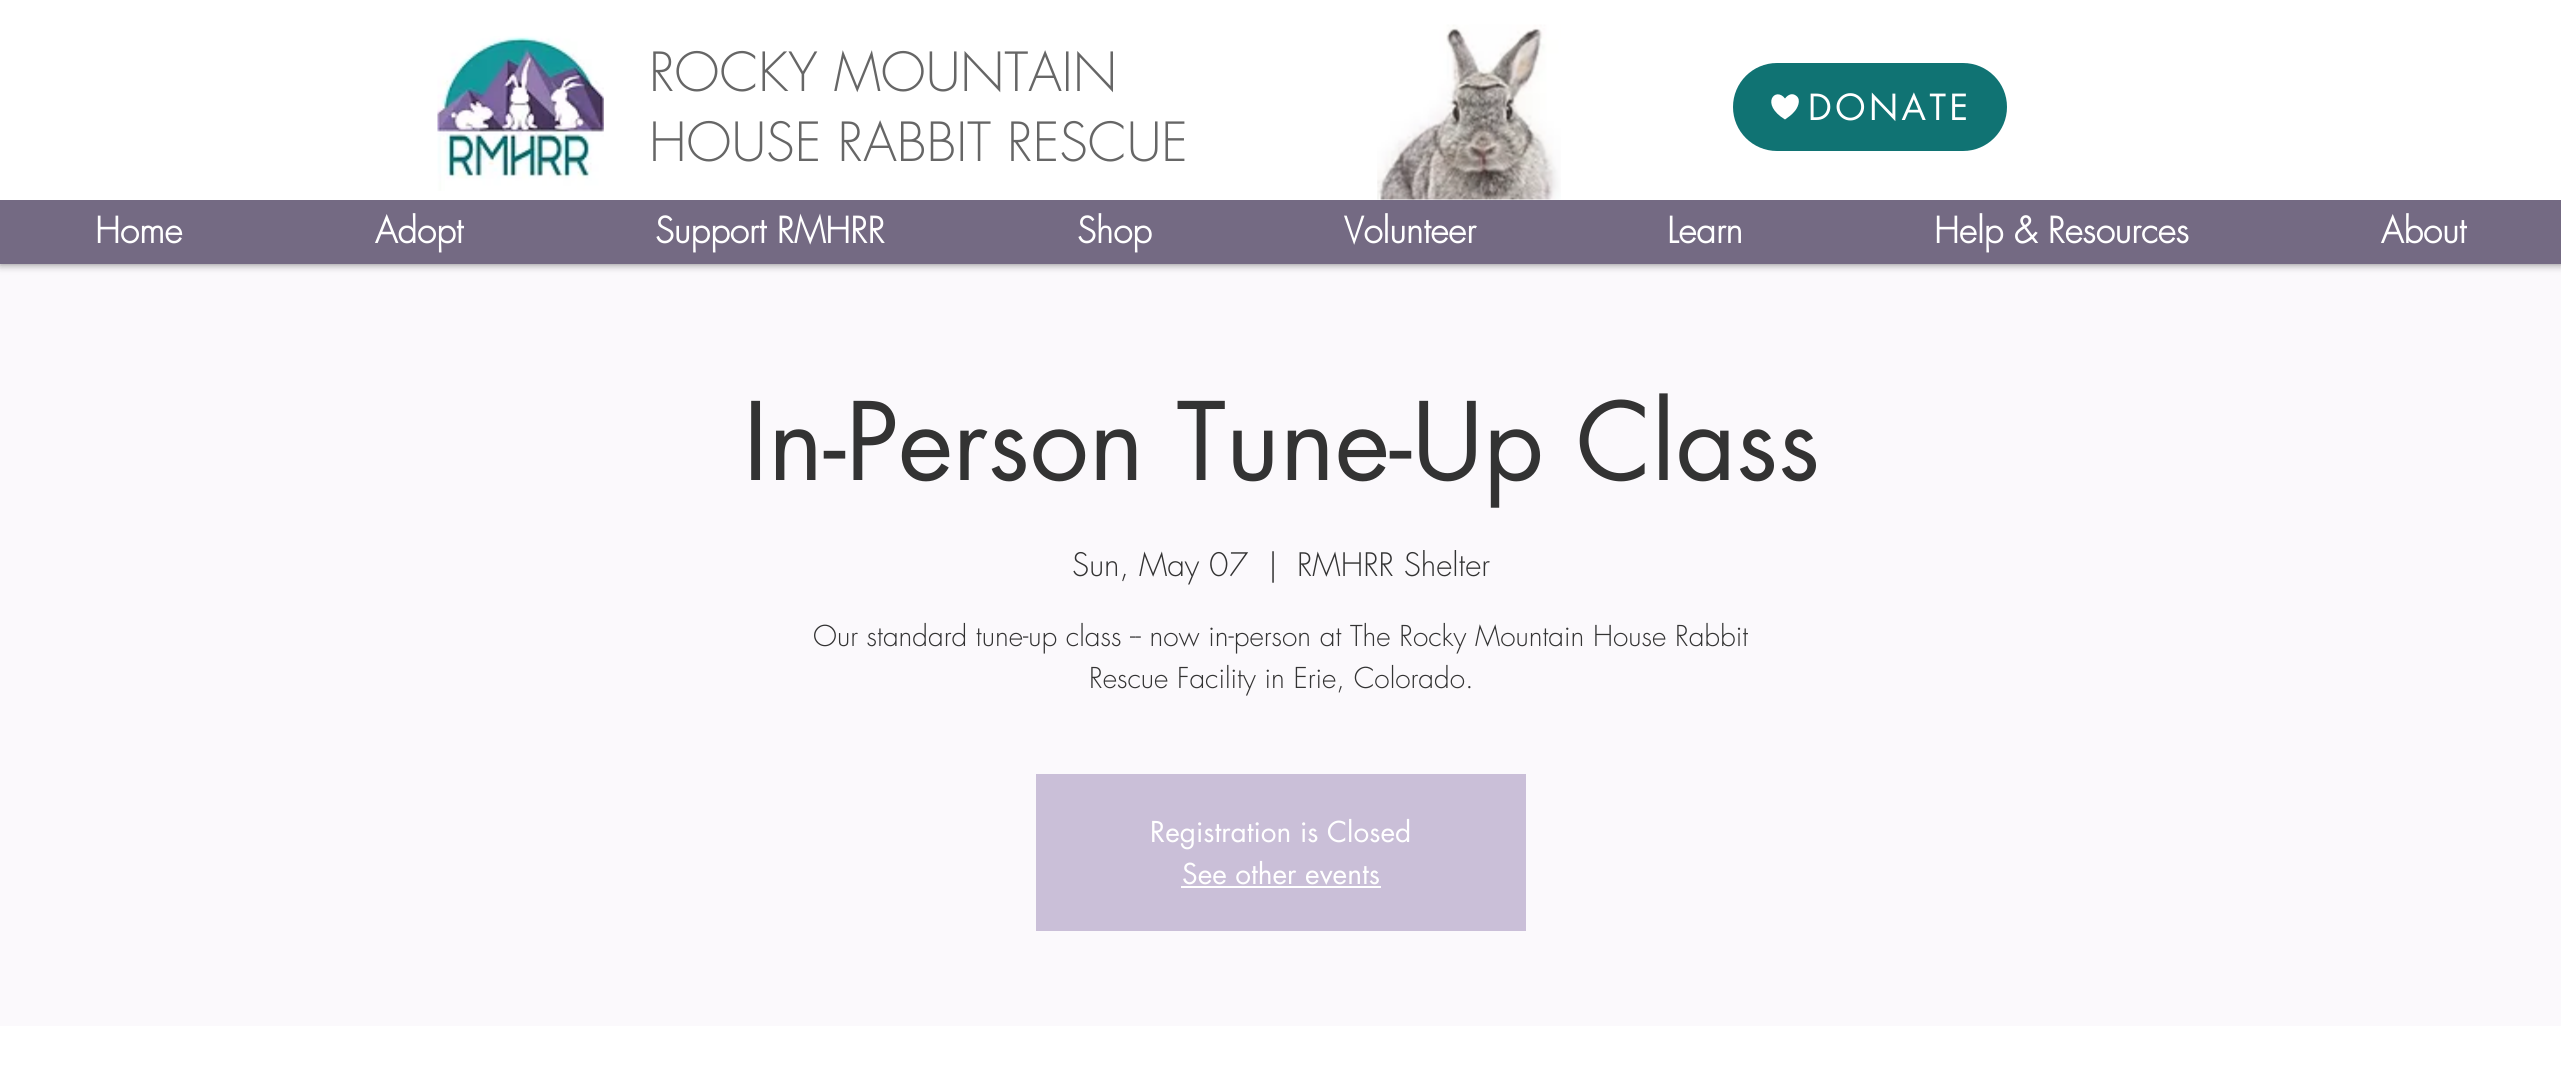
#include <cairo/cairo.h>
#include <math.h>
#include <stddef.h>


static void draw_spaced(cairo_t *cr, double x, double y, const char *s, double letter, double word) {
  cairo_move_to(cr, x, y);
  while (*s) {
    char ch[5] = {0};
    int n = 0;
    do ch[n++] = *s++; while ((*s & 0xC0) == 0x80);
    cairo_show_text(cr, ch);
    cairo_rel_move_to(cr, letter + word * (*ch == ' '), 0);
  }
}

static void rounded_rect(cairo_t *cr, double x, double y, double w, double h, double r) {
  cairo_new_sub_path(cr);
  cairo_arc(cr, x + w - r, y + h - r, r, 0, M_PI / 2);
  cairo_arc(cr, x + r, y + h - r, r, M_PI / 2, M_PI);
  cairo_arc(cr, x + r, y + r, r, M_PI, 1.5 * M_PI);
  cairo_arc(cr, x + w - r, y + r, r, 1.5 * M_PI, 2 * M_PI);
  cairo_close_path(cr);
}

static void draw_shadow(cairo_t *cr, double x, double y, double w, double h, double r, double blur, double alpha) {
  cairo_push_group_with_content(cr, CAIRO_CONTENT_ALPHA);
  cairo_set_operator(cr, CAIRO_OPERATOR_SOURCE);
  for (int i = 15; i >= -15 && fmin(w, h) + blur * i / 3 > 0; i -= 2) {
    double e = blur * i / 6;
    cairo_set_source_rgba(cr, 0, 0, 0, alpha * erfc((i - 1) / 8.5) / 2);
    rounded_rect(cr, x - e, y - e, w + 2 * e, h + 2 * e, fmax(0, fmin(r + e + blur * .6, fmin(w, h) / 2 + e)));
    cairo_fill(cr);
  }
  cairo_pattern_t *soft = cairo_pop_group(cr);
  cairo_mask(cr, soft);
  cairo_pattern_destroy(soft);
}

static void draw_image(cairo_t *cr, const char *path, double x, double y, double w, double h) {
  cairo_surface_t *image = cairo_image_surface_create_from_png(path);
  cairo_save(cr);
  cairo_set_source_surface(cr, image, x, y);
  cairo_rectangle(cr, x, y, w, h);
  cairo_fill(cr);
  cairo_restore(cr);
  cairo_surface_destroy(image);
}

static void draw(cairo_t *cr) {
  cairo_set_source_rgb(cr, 1, 1, 1);
  cairo_paint(cr);
  cairo_set_source_rgb(cr, 251 / 255.0, 249 / 255.0, 252 / 255.0);
  cairo_rectangle(cr, 0, 264, 2561, 762);
  cairo_fill(cr);
  cairo_set_source_rgb(cr, 0, 0, 0);
  draw_shadow(cr, 0, 0, 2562, 264, 0, 4.5, 0.5);
  cairo_set_source_rgb(cr, 1, 1, 1);
  cairo_rectangle(cr, 0, 0, 2561, 200);
  cairo_fill(cr);
  draw_image(cr, "images/1.png", 437, 36, 167, 155);
  draw_image(cr, "images/2.png", 1377, 24, 184, 176);
  cairo_set_source_rgb(cr, 16 / 255.0, 115 / 255.0, 115 / 255.0);
  rounded_rect(cr, 1733, 63, 274, 88, 44);
  cairo_fill(cr);
  cairo_set_source_rgb(cr, 1, 1, 1);
  cairo_new_path(cr);
  cairo_move_to(cr, 1796.5, 96);
  cairo_curve_to(cr, 1792.5, 92.5, 1788, 94.5, 1785, 98.5);
  cairo_curve_to(cr, 1775.5, 86, 1759.5, 104, 1785, 119.5);
  cairo_curve_to(cr, 1788.5, 117, 1791.5, 115, 1794, 112);
  cairo_curve_to(cr, 1797.5, 108.5, 1801.5, 100, 1796.5, 96);
  cairo_close_path(cr);
  cairo_fill(cr);
  cairo_set_source_rgb(cr, 116 / 255.0, 106 / 255.0, 131 / 255.0);
  cairo_rectangle(cr, 0, 200, 2561, 64);
  cairo_fill(cr);
  cairo_set_source_rgb(cr, 202 / 255.0, 191 / 255.0, 216 / 255.0);
  cairo_rectangle(cr, 1036, 774, 490, 157);
  cairo_fill(cr);
  cairo_set_source_rgb(cr, 1, 1, 1);
  cairo_rectangle(cr, 1181, 886, 200, 2);
  cairo_fill(cr);
  cairo_select_font_face(cr, "futura Light", CAIRO_FONT_SLANT_NORMAL, CAIRO_FONT_WEIGHT_NORMAL);
  cairo_set_font_size(cr, 52.5);
  cairo_set_source_rgb(cr, 102 / 255.0, 102 / 255.0, 102 / 255.0);
  cairo_move_to(cr, 649, 91);
  cairo_show_text(cr, "ROCKY MOUNTAIN");
  cairo_move_to(cr, 649, 161);
  cairo_show_text(cr, "HOUSE RABBIT RESCUE");
  cairo_select_font_face(cr, "futura", CAIRO_FONT_SLANT_NORMAL, CAIRO_FONT_WEIGHT_NORMAL);
  cairo_set_font_size(cr, 35);
  cairo_set_source_rgb(cr, 1, 1, 1);
  draw_spaced(cr, 1808, 120, "DONATE", 3.5, 0);
  cairo_select_font_face(cr, "futura", CAIRO_FONT_SLANT_NORMAL, CAIRO_FONT_WEIGHT_BOLD);
  cairo_move_to(cr, 95, 243);
  cairo_show_text(cr, "Home");
  cairo_move_to(cr, 375, 243);
  cairo_show_text(cr, "Adopt");
  cairo_move_to(cr, 655, 243);
  cairo_show_text(cr, "Support RMHRR");
  cairo_move_to(cr, 1077, 243);
  cairo_show_text(cr, "Shop");
  cairo_move_to(cr, 1344, 243);
  cairo_show_text(cr, "Volunteer");
  cairo_move_to(cr, 1667, 243);
  cairo_show_text(cr, "Learn");
  cairo_move_to(cr, 1934, 243);
  cairo_show_text(cr, "Help & Resources");
  cairo_move_to(cr, 2381, 243);
  cairo_show_text(cr, "About");
  cairo_select_font_face(cr, "futura", CAIRO_FONT_SLANT_NORMAL, CAIRO_FONT_WEIGHT_NORMAL);
  cairo_set_font_size(cr, 105);
  cairo_set_source_rgb(cr, 51 / 255.0, 51 / 255.0, 51 / 255.0);
  cairo_move_to(cr, 743, 480);
  cairo_show_text(cr, "In-Person Tune-Up Class");
  cairo_select_font_face(cr, "futura Light", CAIRO_FONT_SLANT_NORMAL, CAIRO_FONT_WEIGHT_NORMAL);
  cairo_set_font_size(cr, 31.5);
  cairo_move_to(cr, 1072, 576);
  cairo_show_text(cr, "Sun, May 07");
  cairo_move_to(cr, 1268, 576);
  cairo_show_text(cr, "|");
  cairo_move_to(cr, 1297, 576);
  cairo_show_text(cr, "RMHRR Shelter");
  cairo_set_font_size(cr, 28);
  cairo_move_to(cr, 813, 646);
  cairo_show_text(cr, "Our standard tune-up class -- now in-person at The Rocky Mountain House Rabbit");
  cairo_move_to(cr, 1089, 688);
  cairo_show_text(cr, "Rescue Facility in Erie, Colorado.");
  cairo_select_font_face(cr, "futura", CAIRO_FONT_SLANT_NORMAL, CAIRO_FONT_WEIGHT_NORMAL);
  cairo_set_source_rgb(cr, 1, 1, 1);
  cairo_move_to(cr, 1150, 842);
  cairo_show_text(cr, "Registration is Closed");
  cairo_move_to(cr, 1182, 884);
  cairo_show_text(cr, "See other events");
}

int main(void) {
  cairo_surface_t *surface = cairo_image_surface_create(CAIRO_FORMAT_RGB24, 2561, 1090);
  cairo_t *cr = cairo_create(surface);
  cairo_font_options_t *options = cairo_font_options_create();
  cairo_font_options_set_hint_metrics(options, CAIRO_HINT_METRICS_OFF);
  cairo_font_options_set_hint_style(options, CAIRO_HINT_STYLE_NONE);
  cairo_set_font_options(cr, options);
  cairo_set_miter_limit(cr, 4);
  draw(cr);
  cairo_surface_write_to_png(surface, "out.png");
  cairo_font_options_destroy(options);
  cairo_destroy(cr);
  cairo_surface_destroy(surface);
  return 0;
}
